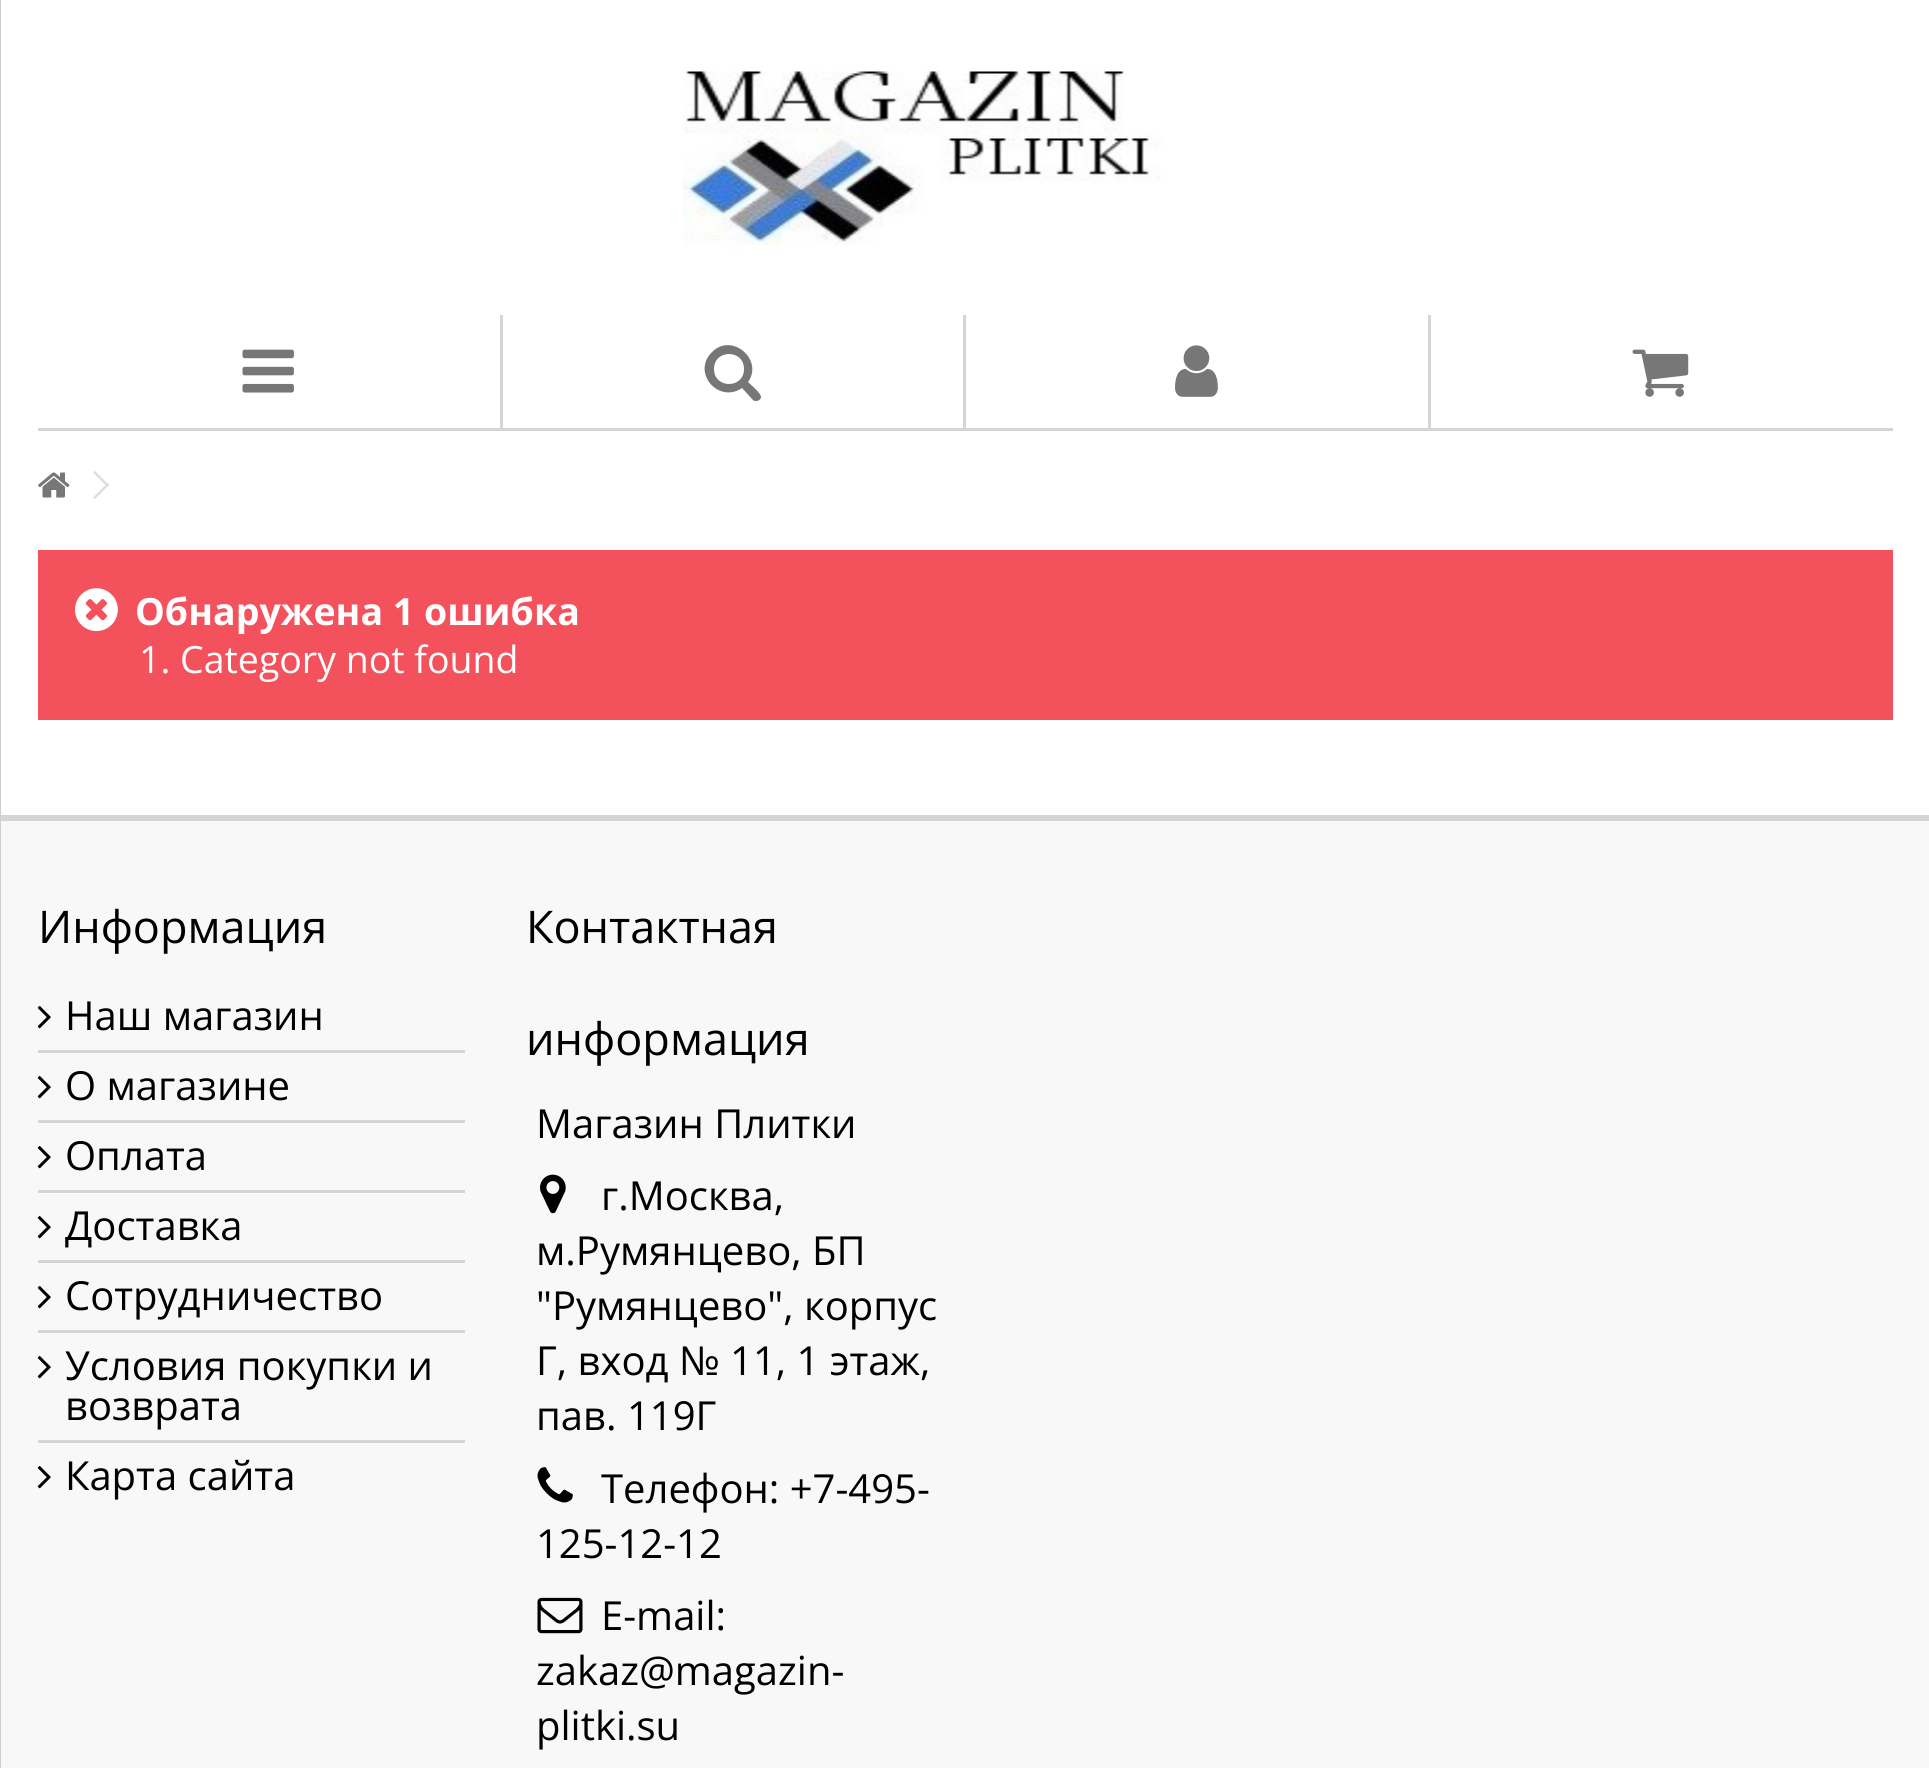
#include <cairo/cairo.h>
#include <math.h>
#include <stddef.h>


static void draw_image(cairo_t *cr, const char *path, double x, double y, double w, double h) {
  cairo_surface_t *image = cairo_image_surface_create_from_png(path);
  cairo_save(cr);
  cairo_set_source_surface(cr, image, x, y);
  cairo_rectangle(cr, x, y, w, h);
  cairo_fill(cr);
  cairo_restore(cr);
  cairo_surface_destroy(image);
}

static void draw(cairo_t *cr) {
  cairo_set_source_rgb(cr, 1, 1, 1);
  cairo_paint(cr);
  cairo_set_source_rgb(cr, 214 / 255.0, 212 / 255.0, 212 / 255.0);
  cairo_rectangle(cr, 0, 815, 1929, 6);
  cairo_fill(cr);
  cairo_set_source_rgb(cr, 206 / 255.0, 206 / 255.0, 206 / 255.0);
  cairo_rectangle(cr, 0, 0, 1, 1768);
  cairo_fill(cr);
  cairo_set_source_rgb(cr, 214 / 255.0, 212 / 255.0, 212 / 255.0);
  cairo_rectangle(cr, 38, 428, 1855, 3);
  cairo_fill(cr);
  draw_image(cr, "images/1.png", 683, 71, 478, 178);
  cairo_rectangle(cr, 500, 315, 3, 113);
  cairo_fill(cr);
  draw_image(cr, "images/2.png", 242, 349, 52, 44);
  cairo_rectangle(cr, 963, 315, 3, 113);
  cairo_fill(cr);
  cairo_set_source_rgb(cr, 119 / 255.0, 119 / 255.0, 119 / 255.0);
  cairo_new_path(cr);
  cairo_move_to(cr, 744, 369);
  cairo_curve_to(cr, 744, 389, 714, 389, 714, 369);
  cairo_curve_to(cr, 714, 349, 744, 349, 744, 369);
  cairo_close_path(cr);
  cairo_move_to(cr, 761, 397);
  cairo_curve_to(cr, 761, 393, 751, 385, 748, 382);
  cairo_curve_to(cr, 764, 360, 732, 332, 712, 352);
  cairo_curve_to(cr, 691, 373, 719, 404, 742, 388);
  cairo_line_to(cr, 753, 400);
  cairo_curve_to(cr, 754, 401, 755, 401, 756, 401);
  cairo_curve_to(cr, 759, 401, 761, 399, 761, 397);
  cairo_close_path(cr);
  cairo_fill(cr);
  cairo_set_source_rgb(cr, 214 / 255.0, 212 / 255.0, 212 / 255.0);
  cairo_rectangle(cr, 1428, 315, 3, 113);
  cairo_fill(cr);
  draw_image(cr, "images/3.png", 1175, 345, 43, 52);
  draw_image(cr, "images/4.png", 1632, 349, 57, 48);
  draw_image(cr, "images/5.png", 38, 472, 32, 26);
  cairo_set_source_rgb(cr, 221 / 255.0, 221 / 255.0, 221 / 255.0);
  cairo_new_path(cr);
  cairo_move_to(cr, 95, 471);
  cairo_line_to(cr, 109, 485);
  cairo_line_to(cr, 107.5, 487);
  cairo_line_to(cr, 93, 472.5);
  cairo_close_path(cr);
  cairo_fill(cr);
  cairo_new_path(cr);
  cairo_move_to(cr, 107.5, 483);
  cairo_line_to(cr, 109, 485);
  cairo_line_to(cr, 95, 499);
  cairo_line_to(cr, 93, 497.5);
  cairo_close_path(cr);
  cairo_fill(cr);
  cairo_set_source_rgb(cr, 243 / 255.0, 81 / 255.0, 92 / 255.0);
  cairo_rectangle(cr, 38, 550, 1855, 170);
  cairo_fill(cr);
  draw_image(cr, "images/6.png", 75, 588, 43, 44);
  cairo_set_source_rgb(cr, 248 / 255.0, 248 / 255.0, 248 / 255.0);
  cairo_rectangle(cr, 1, 821, 1928, 947);
  cairo_fill(cr);
  draw_image(cr, "images/7.png", 37, 1006, 14, 23);
  cairo_set_source_rgb(cr, 214 / 255.0, 212 / 255.0, 212 / 255.0);
  cairo_rectangle(cr, 38, 1050, 427, 3);
  cairo_fill(cr);
  draw_image(cr, "images/7.png", 37, 1076, 14, 23);
  cairo_rectangle(cr, 38, 1120, 427, 3);
  cairo_fill(cr);
  draw_image(cr, "images/7.png", 37, 1146, 14, 23);
  cairo_rectangle(cr, 38, 1190, 427, 3);
  cairo_fill(cr);
  draw_image(cr, "images/7.png", 37, 1216, 14, 23);
  cairo_rectangle(cr, 38, 1260, 427, 3);
  cairo_fill(cr);
  draw_image(cr, "images/7.png", 37, 1286, 14, 23);
  cairo_rectangle(cr, 38, 1330, 427, 3);
  cairo_fill(cr);
  draw_image(cr, "images/7.png", 37, 1356, 14, 23);
  cairo_rectangle(cr, 38, 1440, 427, 3);
  cairo_fill(cr);
  draw_image(cr, "images/7.png", 37, 1466, 14, 23);
  draw_image(cr, "images/8.png", 540, 1174, 26, 40);
  draw_image(cr, "images/9.png", 537, 1467, 36, 36);
  draw_image(cr, "images/10.png", 537, 1597, 46, 37);
  cairo_select_font_face(cr, "Open Sans", CAIRO_FONT_SLANT_NORMAL, CAIRO_FONT_WEIGHT_BOLD);
  cairo_set_font_size(cr, 37.5);
  cairo_set_source_rgb(cr, 1, 1, 1);
  cairo_move_to(cr, 135, 625);
  cairo_show_text(cr, "Обнаружена 1 ошибка");
  cairo_select_font_face(cr, "Open Sans", CAIRO_FONT_SLANT_NORMAL, CAIRO_FONT_WEIGHT_NORMAL);
  cairo_move_to(cr, 139, 673);
  cairo_show_text(cr, "1. Category not found");
  cairo_set_font_size(cr, 45);
  cairo_set_source_rgb(cr, 0, 0, 0);
  cairo_move_to(cr, 38, 943);
  cairo_show_text(cr, "Информация");
  cairo_set_font_size(cr, 40);
  cairo_move_to(cr, 65, 1030);
  cairo_show_text(cr, "Наш магазин");
  cairo_move_to(cr, 65, 1100);
  cairo_show_text(cr, "О магазине");
  cairo_move_to(cr, 65, 1170);
  cairo_show_text(cr, "Оплата");
  cairo_move_to(cr, 65, 1240);
  cairo_show_text(cr, "Доставка");
  cairo_move_to(cr, 65, 1310);
  cairo_show_text(cr, "Сотрудничество");
  cairo_move_to(cr, 65, 1380);
  cairo_show_text(cr, "Условия покупки и");
  cairo_move_to(cr, 65, 1420);
  cairo_show_text(cr, "возврата");
  cairo_move_to(cr, 65, 1490);
  cairo_show_text(cr, "Карта сайта");
  cairo_set_font_size(cr, 45);
  cairo_move_to(cr, 526, 943);
  cairo_show_text(cr, "Контактная");
  cairo_move_to(cr, 526, 1055);
  cairo_show_text(cr, "информация");
  cairo_set_font_size(cr, 40);
  cairo_move_to(cr, 536, 1138);
  cairo_show_text(cr, "Магазин Плитки");
  cairo_move_to(cr, 601, 1210);
  cairo_show_text(cr, "г.Москва,");
  cairo_move_to(cr, 536, 1265);
  cairo_show_text(cr, "м.Румянцево, БП");
  cairo_move_to(cr, 536, 1320);
  cairo_show_text(cr, "\"Румянцево\", корпус");
  cairo_move_to(cr, 536, 1375);
  cairo_show_text(cr, "Г, вход № 11, 1 этаж,");
  cairo_move_to(cr, 536, 1430);
  cairo_show_text(cr, "пав. 119Г");
  cairo_move_to(cr, 601, 1503);
  cairo_show_text(cr, "Телефон: +7-495-");
  cairo_move_to(cr, 536, 1558);
  cairo_show_text(cr, "125-12-12");
  cairo_move_to(cr, 601, 1630);
  cairo_show_text(cr, "E-mail:");
  cairo_move_to(cr, 536, 1685);
  cairo_show_text(cr, "zakaz@magazin-");
  cairo_move_to(cr, 536, 1740);
  cairo_show_text(cr, "plitki.su");
}

int main(void) {
  cairo_surface_t *surface = cairo_image_surface_create(CAIRO_FORMAT_RGB24, 1929, 1768);
  cairo_t *cr = cairo_create(surface);
  cairo_font_options_t *options = cairo_font_options_create();
  cairo_font_options_set_hint_metrics(options, CAIRO_HINT_METRICS_OFF);
  cairo_font_options_set_hint_style(options, CAIRO_HINT_STYLE_NONE);
  cairo_set_font_options(cr, options);
  cairo_set_miter_limit(cr, 4);
  draw(cr);
  cairo_surface_write_to_png(surface, "out.png");
  cairo_font_options_destroy(options);
  cairo_destroy(cr);
  cairo_surface_destroy(surface);
  return 0;
}
